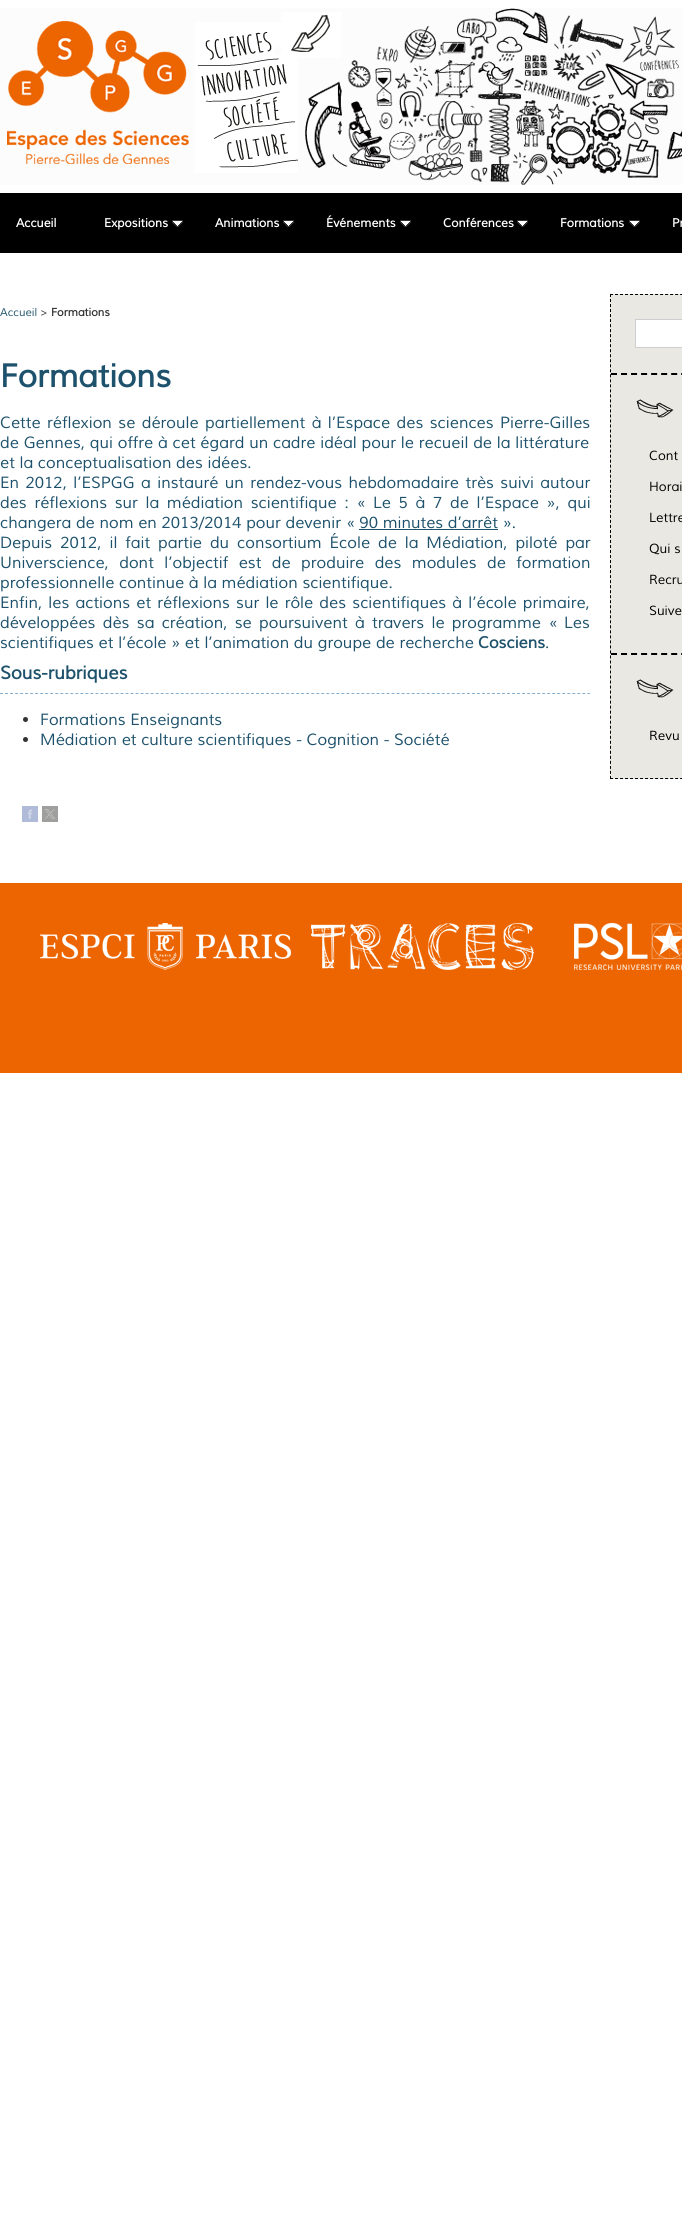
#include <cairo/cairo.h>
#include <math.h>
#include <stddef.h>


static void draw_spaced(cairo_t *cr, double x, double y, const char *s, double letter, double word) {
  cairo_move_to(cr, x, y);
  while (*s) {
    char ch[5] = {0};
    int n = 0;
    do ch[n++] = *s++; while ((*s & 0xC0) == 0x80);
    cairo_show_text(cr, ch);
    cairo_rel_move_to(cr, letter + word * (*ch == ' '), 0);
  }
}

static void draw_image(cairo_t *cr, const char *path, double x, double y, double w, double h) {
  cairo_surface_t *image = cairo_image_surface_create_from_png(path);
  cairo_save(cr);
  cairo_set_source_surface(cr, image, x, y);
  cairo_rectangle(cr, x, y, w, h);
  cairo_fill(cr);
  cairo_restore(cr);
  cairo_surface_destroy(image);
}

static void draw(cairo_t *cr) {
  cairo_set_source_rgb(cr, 1, 1, 1);
  cairo_paint(cr);
  draw_image(cr, "images/1.png", 0, 8, 682, 177);
  cairo_set_source_rgb(cr, 0, 0, 0);
  cairo_rectangle(cr, 0, 193, 682, 60);
  cairo_fill(cr);
  draw_image(cr, "images/2.png", 172, 220, 11, 7);
  draw_image(cr, "images/2.png", 283, 220, 11, 7);
  draw_image(cr, "images/2.png", 400, 220, 11, 7);
  draw_image(cr, "images/2.png", 517, 220, 11, 7);
  draw_image(cr, "images/2.png", 629, 220, 11, 7);
  cairo_set_source_rgb(cr, 30 / 255.0, 82 / 255.0, 108 / 255.0);
  cairo_rectangle(cr, 359, 529, 139, 1);
  cairo_fill(cr);
  cairo_new_path(cr);
  cairo_move_to(cr, 0, 693.5);
  cairo_line_to(cr, 590, 693.5);
  cairo_set_source_rgb(cr, 136 / 255.0, 175 / 255.0, 206 / 255.0);
  cairo_set_line_width(cr, 1);
  cairo_set_dash(cr, (double[]){3, 2.02}, 2, 0);
  cairo_stroke(cr);
  cairo_set_source_rgb(cr, 51 / 255.0, 51 / 255.0, 51 / 255.0);
  cairo_arc(cr, 25.5, 719.5, 2.5, 0, 2 * M_PI);
  cairo_fill(cr);
  cairo_arc(cr, 25.5, 739.5, 2.5, 0, 2 * M_PI);
  cairo_fill(cr);
  draw_image(cr, "images/3.png", 22, 806, 16, 16);
  draw_image(cr, "images/4.png", 42, 806, 16, 16);
  cairo_set_source_rgb(cr, 233 / 255.0, 232 / 255.0, 226 / 255.0);
  cairo_rectangle(cr, 610, 294, 72, 485);
  cairo_fill(cr);
  cairo_new_path(cr);
  cairo_move_to(cr, 610, 294.5);
  cairo_line_to(cr, 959, 294.5);
  cairo_set_source_rgb(cr, 0, 0, 0);
  cairo_set_dash(cr, (double[]){3, 2.01}, 2, 0);
  cairo_stroke(cr);
  cairo_new_path(cr);
  cairo_move_to(cr, 610, 778.5);
  cairo_line_to(cr, 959, 778.5);
  cairo_stroke(cr);
  cairo_new_path(cr);
  cairo_move_to(cr, 610.5, 294);
  cairo_line_to(cr, 610.5, 779);
  cairo_set_dash(cr, (double[]){3, 2.02}, 2, 0);
  cairo_stroke(cr);
  cairo_new_path(cr);
  cairo_move_to(cr, 611, 374);
  cairo_line_to(cr, 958, 374);
  cairo_set_line_width(cr, 2);
  cairo_set_dash(cr, (double[]){6, 4.03}, 2, 0);
  cairo_stroke(cr);
  cairo_set_source_rgb(cr, 1, 1, 1);
  cairo_rectangle(cr, 635.5, 319.5, 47, 28);
  cairo_fill_preserve(cr);
  cairo_set_source_rgb(cr, 204 / 255.0, 206 / 255.0, 208 / 255.0);
  cairo_set_line_width(cr, 1);
  cairo_set_dash(cr, NULL, 0, 0);
  cairo_stroke(cr);
  cairo_new_path(cr);
  cairo_move_to(cr, 611, 654);
  cairo_line_to(cr, 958, 654);
  cairo_set_source_rgb(cr, 0, 0, 0);
  cairo_set_line_width(cr, 2);
  cairo_set_dash(cr, (double[]){6, 4.03}, 2, 0);
  cairo_stroke(cr);
  draw_image(cr, "images/5.png", 636, 399, 38, 19);
  draw_image(cr, "images/5.png", 636, 679, 38, 19);
  cairo_set_source_rgb(cr, 236 / 255.0, 101 / 255.0, 1 / 255.0);
  cairo_rectangle(cr, 0, 883, 682, 190);
  cairo_fill(cr);
  draw_image(cr, "images/6.png", 40, 923, 251, 47);
  draw_image(cr, "images/7.png", 311, 923, 223, 47);
  draw_image(cr, "images/8.png", 574, 923, 108, 47);
  cairo_select_font_face(cr, "Muli", CAIRO_FONT_SLANT_ITALIC, CAIRO_FONT_WEIGHT_BOLD);
  cairo_set_font_size(cr, 12);
  cairo_set_source_rgb(cr, 1, 1, 1);
  cairo_move_to(cr, 16, 227);
  cairo_show_text(cr, "Accueil");
  cairo_move_to(cr, 104, 227);
  cairo_show_text(cr, "Expositions");
  cairo_move_to(cr, 215, 227);
  cairo_show_text(cr, "Animations");
  cairo_move_to(cr, 326, 227);
  cairo_show_text(cr, "Événements");
  cairo_move_to(cr, 443, 227);
  cairo_show_text(cr, "Conférences");
  cairo_move_to(cr, 560, 227);
  cairo_show_text(cr, "Formations");
  cairo_move_to(cr, 672, 227);
  cairo_show_text(cr, "Pr");
  cairo_select_font_face(cr, "Muli", CAIRO_FONT_SLANT_ITALIC, CAIRO_FONT_WEIGHT_NORMAL);
  cairo_set_font_size(cr, 11);
  cairo_set_source_rgb(cr, 30 / 255.0, 82 / 255.0, 108 / 255.0);
  cairo_move_to(cr, 0, 316);
  cairo_show_text(cr, "Accueil");
  cairo_set_source_rgb(cr, 51 / 255.0, 51 / 255.0, 51 / 255.0);
  cairo_move_to(cr, 40, 316);
  cairo_show_text(cr, ">");
  cairo_select_font_face(cr, "Muli", CAIRO_FONT_SLANT_ITALIC, CAIRO_FONT_WEIGHT_BOLD);
  cairo_move_to(cr, 51, 316);
  cairo_show_text(cr, "Formations");
  cairo_set_font_size(cr, 32);
  cairo_set_source_rgb(cr, 30 / 255.0, 82 / 255.0, 108 / 255.0);
  cairo_move_to(cr, 0, 387);
  cairo_show_text(cr, "Formations");
  cairo_select_font_face(cr, "Muli", CAIRO_FONT_SLANT_ITALIC, CAIRO_FONT_WEIGHT_NORMAL);
  cairo_set_font_size(cr, 16);
  draw_spaced(cr, 0, 428, "Cette réflexion se déroule partiellement à l’Espace des sciences Pierre-Gilles", 0, 1.75);
  draw_spaced(cr, 0, 448, "de Gennes, qui offre à cet égard un cadre idéal pour le recueil de la littérature", 0, 0.1);
  cairo_move_to(cr, 0, 468);
  cairo_show_text(cr, "et la conceptualisation des idées.");
  draw_spaced(cr, 0, 488, "En 2012, l’ESPGG a instauré un rendez-vous hebdomadaire très suivi autour", 0, 1.75);
  draw_spaced(cr, 0, 508, "des réflexions sur la médiation scientifique : « Le 5 à 7 de l’Espace », qui", 0, 3);
  cairo_move_to(cr, 0, 528);
  cairo_show_text(cr, "changera de nom en 2013/2014 pour devenir « 90 minutes d’arrêt ».");
  draw_spaced(cr, 0, 548, "Depuis 2012, il fait partie du consortium École de la Médiation, piloté par", 0, 3.25);
  draw_spaced(cr, 0, 568, "Universcience, dont l’objectif est de produire des modules de formation", 0, 5.75);
  cairo_move_to(cr, 0, 588);
  cairo_show_text(cr, "professionnelle continue à la médiation scientifique.");
  draw_spaced(cr, 0, 608, "Enfin, les actions et réflexions sur le rôle des scientifiques à l’école primaire,", 0, 1.5);
  draw_spaced(cr, 0, 628, "développées dès sa création, se poursuivent à travers le programme «", 0, 2.6);
  cairo_move_to(cr, 564, 628);
  cairo_show_text(cr, "Les");
  cairo_move_to(cr, 0, 648);
  cairo_show_text(cr, "scientifiques et l’école » et l’animation du groupe de recherche");
  cairo_select_font_face(cr, "Muli", CAIRO_FONT_SLANT_ITALIC, CAIRO_FONT_WEIGHT_BOLD);
  cairo_move_to(cr, 478, 648);
  cairo_show_text(cr, "Cosciens");
  cairo_select_font_face(cr, "Muli", CAIRO_FONT_SLANT_ITALIC, CAIRO_FONT_WEIGHT_NORMAL);
  cairo_move_to(cr, 545, 648);
  cairo_show_text(cr, ".");
  cairo_select_font_face(cr, "Muli", CAIRO_FONT_SLANT_ITALIC, CAIRO_FONT_WEIGHT_BOLD);
  cairo_set_font_size(cr, 18);
  cairo_move_to(cr, 0, 679);
  cairo_show_text(cr, "Sous-rubriques");
  cairo_select_font_face(cr, "Muli", CAIRO_FONT_SLANT_ITALIC, CAIRO_FONT_WEIGHT_NORMAL);
  cairo_set_font_size(cr, 16);
  cairo_move_to(cr, 40, 725);
  cairo_show_text(cr, "Formations Enseignants");
  cairo_move_to(cr, 40, 745);
  cairo_show_text(cr, "Médiation et culture scientifiques - Cognition - Société");
  cairo_set_font_size(cr, 13);
  cairo_set_source_rgb(cr, 0, 0, 0);
  cairo_move_to(cr, 649, 460);
  cairo_show_text(cr, "Cont");
  cairo_move_to(cr, 649, 491);
  cairo_show_text(cr, "Horai");
  cairo_move_to(cr, 649, 522);
  cairo_show_text(cr, "Lettre");
  cairo_move_to(cr, 649, 553);
  cairo_show_text(cr, "Qui s");
  cairo_move_to(cr, 649, 584);
  cairo_show_text(cr, "Recru");
  cairo_move_to(cr, 649, 615);
  cairo_show_text(cr, "Suive");
  cairo_move_to(cr, 649, 740);
  cairo_show_text(cr, "Revu");
}

int main(void) {
  cairo_surface_t *surface = cairo_image_surface_create(CAIRO_FORMAT_RGB24, 682, 2239);
  cairo_t *cr = cairo_create(surface);
  cairo_font_options_t *options = cairo_font_options_create();
  cairo_font_options_set_hint_metrics(options, CAIRO_HINT_METRICS_OFF);
  cairo_font_options_set_hint_style(options, CAIRO_HINT_STYLE_NONE);
  cairo_set_font_options(cr, options);
  cairo_set_miter_limit(cr, 4);
  draw(cr);
  cairo_surface_write_to_png(surface, "out.png");
  cairo_font_options_destroy(options);
  cairo_destroy(cr);
  cairo_surface_destroy(surface);
  return 0;
}
